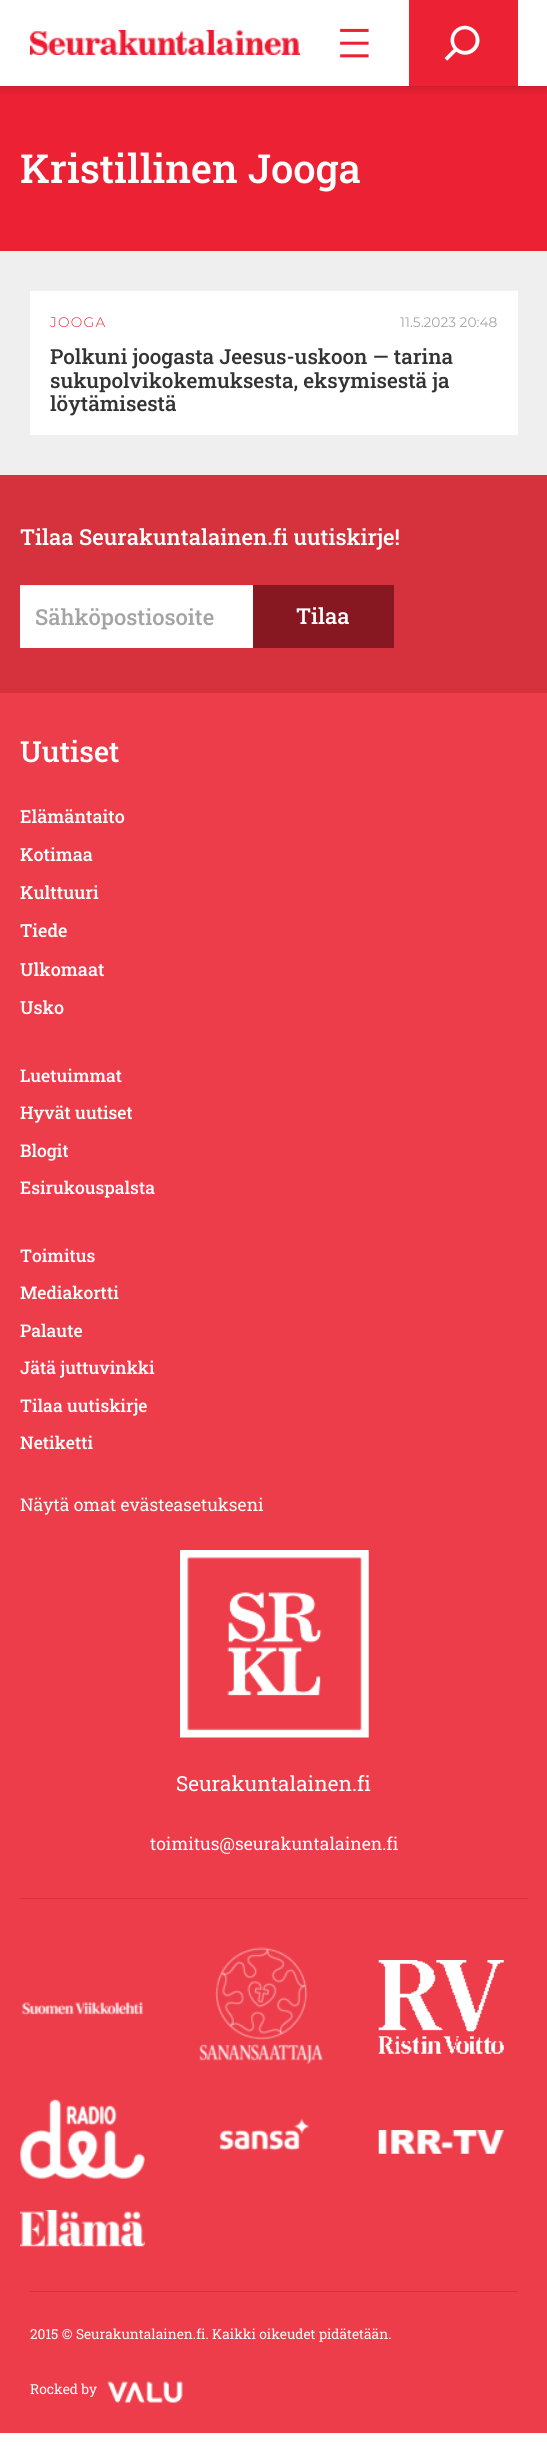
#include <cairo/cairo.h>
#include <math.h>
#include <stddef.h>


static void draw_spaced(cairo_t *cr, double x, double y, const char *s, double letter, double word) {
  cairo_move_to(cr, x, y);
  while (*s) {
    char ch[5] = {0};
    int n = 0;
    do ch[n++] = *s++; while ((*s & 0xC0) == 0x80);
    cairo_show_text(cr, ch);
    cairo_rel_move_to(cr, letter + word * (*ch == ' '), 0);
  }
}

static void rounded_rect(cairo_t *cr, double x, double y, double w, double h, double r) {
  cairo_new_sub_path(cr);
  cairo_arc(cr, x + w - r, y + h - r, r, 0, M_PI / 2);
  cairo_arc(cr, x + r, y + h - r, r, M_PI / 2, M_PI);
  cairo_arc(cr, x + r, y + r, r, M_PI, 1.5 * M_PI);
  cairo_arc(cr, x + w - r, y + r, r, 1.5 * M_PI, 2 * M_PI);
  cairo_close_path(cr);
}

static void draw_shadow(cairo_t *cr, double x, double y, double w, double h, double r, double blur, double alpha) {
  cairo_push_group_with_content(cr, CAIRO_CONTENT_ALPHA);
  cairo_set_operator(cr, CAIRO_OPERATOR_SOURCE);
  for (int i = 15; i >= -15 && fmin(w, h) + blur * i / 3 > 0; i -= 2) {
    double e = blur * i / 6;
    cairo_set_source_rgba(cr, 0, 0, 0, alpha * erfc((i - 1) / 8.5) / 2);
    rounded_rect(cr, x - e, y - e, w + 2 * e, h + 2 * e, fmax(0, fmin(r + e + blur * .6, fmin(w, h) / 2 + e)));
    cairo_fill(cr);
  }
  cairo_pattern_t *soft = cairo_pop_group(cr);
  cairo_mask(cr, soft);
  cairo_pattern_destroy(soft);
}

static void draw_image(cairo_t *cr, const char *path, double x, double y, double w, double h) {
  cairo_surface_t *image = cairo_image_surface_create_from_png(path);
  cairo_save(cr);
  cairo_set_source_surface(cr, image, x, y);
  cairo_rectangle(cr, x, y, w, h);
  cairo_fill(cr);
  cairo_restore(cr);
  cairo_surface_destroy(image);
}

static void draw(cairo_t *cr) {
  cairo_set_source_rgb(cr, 1, 1, 1);
  cairo_paint(cr);
  cairo_set_source_rgb(cr, 236 / 255.0, 34 / 255.0, 52 / 255.0);
  cairo_rectangle(cr, 0, 86, 547, 165);
  cairo_fill(cr);
  cairo_save(cr);
  cairo_rectangle(cr, 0, 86, 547, 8);
  cairo_clip(cr);
  cairo_set_source_rgb(cr, 0, 0, 0);
  draw_shadow(cr, 0, 0, 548, 86, 0, 6, 0.25);
  cairo_restore(cr);
  draw_image(cr, "images/1.png", 30, 30, 270, 25);
  draw_image(cr, "images/2.png", 340, 28, 29, 30);
  cairo_rectangle(cr, 409, 0, 109, 86);
  cairo_fill(cr);
  draw_image(cr, "images/3.png", 444, 25, 36, 36);
  cairo_set_source_rgb(cr, 239 / 255.0, 239 / 255.0, 239 / 255.0);
  cairo_rectangle(cr, 0, 251, 547, 224);
  cairo_fill(cr);
  cairo_set_source_rgb(cr, 1, 1, 1);
  cairo_rectangle(cr, 30, 291, 488, 144);
  cairo_fill(cr);
  cairo_set_source_rgb(cr, 214 / 255.0, 50 / 255.0, 62 / 255.0);
  cairo_rectangle(cr, 0, 475, 547, 218);
  cairo_fill(cr);
  cairo_set_source_rgb(cr, 1, 1, 1);
  cairo_rectangle(cr, 20, 586, 233, 62);
  cairo_fill(cr);
  cairo_set_source_rgb(cr, 236 / 255.0, 236 / 255.0, 236 / 255.0);
  cairo_rectangle(cr, 20, 585, 233, 1);
  cairo_fill(cr);
  cairo_set_source_rgb(cr, 135 / 255.0, 23 / 255.0, 32 / 255.0);
  cairo_rectangle(cr, 253, 585, 141, 63);
  cairo_fill(cr);
  cairo_set_source_rgb(cr, 237 / 255.0, 61 / 255.0, 74 / 255.0);
  cairo_rectangle(cr, 0, 693, 547, 1740);
  cairo_fill(cr);
  cairo_set_source_rgb(cr, 214 / 255.0, 50 / 255.0, 62 / 255.0);
  cairo_rectangle(cr, 20, 1898, 508, 1);
  cairo_fill(cr);
  draw_image(cr, "images/4.png", 180, 1550, 189, 188);
  draw_image(cr, "images/5.png", 21, 2002, 123, 13);
  draw_image(cr, "images/6.png", 199, 1947, 124, 117);
  draw_image(cr, "images/7.png", 378, 1960, 126, 94);
  draw_image(cr, "images/8.png", 20, 2098, 125, 81);
  draw_image(cr, "images/9.png", 219, 2118, 91, 33);
  draw_image(cr, "images/10.png", 378, 2130, 126, 24);
  draw_image(cr, "images/11.png", 20, 2210, 125, 37);
  cairo_rectangle(cr, 30, 2291, 488, 1);
  cairo_fill(cr);
  draw_image(cr, "images/12.png", 107, 2381, 76, 22);
  cairo_select_font_face(cr, "Roboto Slab Medium", CAIRO_FONT_SLANT_NORMAL, CAIRO_FONT_WEIGHT_NORMAL);
  cairo_set_font_size(cr, 40);
  cairo_set_source_rgb(cr, 1, 1, 1);
  cairo_move_to(cr, 20, 183);
  cairo_show_text(cr, "Kristillinen Jooga");
  cairo_select_font_face(cr, "Montserrat Light", CAIRO_FONT_SLANT_NORMAL, CAIRO_FONT_WEIGHT_NORMAL);
  cairo_set_font_size(cr, 13.75);
  cairo_set_source_rgb(cr, 236 / 255.0, 34 / 255.0, 52 / 255.0);
  draw_spaced(cr, 50, 327, "JOOGA", 1.25, 0);
  cairo_select_font_face(cr, "Montserrat", CAIRO_FONT_SLANT_NORMAL, CAIRO_FONT_WEIGHT_NORMAL);
  cairo_set_source_rgb(cr, 165 / 255.0, 164 / 255.0, 164 / 255.0);
  cairo_move_to(cr, 400, 327);
  cairo_show_text(cr, "11.5.2023 20:48");
  cairo_select_font_face(cr, "Roboto Slab Medium", CAIRO_FONT_SLANT_NORMAL, CAIRO_FONT_WEIGHT_NORMAL);
  cairo_set_font_size(cr, 20.7);
  cairo_set_source_rgb(cr, 51 / 255.0, 51 / 255.0, 51 / 255.0);
  cairo_move_to(cr, 50, 364);
  cairo_show_text(cr, "Polkuni joogasta Jeesus-uskoon — tarina");
  cairo_move_to(cr, 50, 388);
  cairo_show_text(cr, "sukupolvikokemuksesta, eksymisestä ja");
  cairo_move_to(cr, 50, 411);
  cairo_show_text(cr, "löytämisestä");
  cairo_set_font_size(cr, 22);
  cairo_set_source_rgb(cr, 1, 1, 1);
  cairo_move_to(cr, 20, 545);
  cairo_show_text(cr, "Tilaa Seurakuntalainen.fi uutiskirje!");
  cairo_set_source_rgb(cr, 165 / 255.0, 164 / 255.0, 164 / 255.0);
  cairo_move_to(cr, 35, 625);
  cairo_show_text(cr, "Sähköpostiosoite");
  cairo_set_source_rgb(cr, 1, 1, 1);
  cairo_move_to(cr, 296, 624);
  cairo_show_text(cr, "Tilaa");
  cairo_set_font_size(cr, 29);
  cairo_move_to(cr, 20, 762);
  cairo_show_text(cr, "Uutiset");
  cairo_set_font_size(cr, 18);
  cairo_move_to(cr, 20, 823);
  cairo_show_text(cr, "Elämäntaito");
  cairo_move_to(cr, 20, 861);
  cairo_show_text(cr, "Kotimaa");
  cairo_move_to(cr, 20, 899);
  cairo_show_text(cr, "Kulttuuri");
  cairo_move_to(cr, 20, 937);
  cairo_show_text(cr, "Tiede");
  cairo_move_to(cr, 20, 976);
  cairo_show_text(cr, "Ulkomaat");
  cairo_move_to(cr, 20, 1014);
  cairo_show_text(cr, "Usko");
  cairo_set_font_size(cr, 17.5);
  cairo_move_to(cr, 20, 1082);
  cairo_show_text(cr, "Luetuimmat");
  cairo_move_to(cr, 20, 1119);
  cairo_show_text(cr, "Hyvät uutiset");
  cairo_move_to(cr, 20, 1157);
  cairo_show_text(cr, "Blogit");
  cairo_move_to(cr, 20, 1194);
  cairo_show_text(cr, "Esirukouspalsta");
  cairo_move_to(cr, 20, 1262);
  cairo_show_text(cr, "Toimitus");
  cairo_move_to(cr, 20, 1299);
  cairo_show_text(cr, "Mediakortti");
  cairo_move_to(cr, 20, 1337);
  cairo_show_text(cr, "Palaute");
  cairo_move_to(cr, 20, 1374);
  cairo_show_text(cr, "Jätä juttuvinkki");
  cairo_move_to(cr, 20, 1412);
  cairo_show_text(cr, "Tilaa uutiskirje");
  cairo_move_to(cr, 20, 1449);
  cairo_show_text(cr, "Netiketti");
  cairo_select_font_face(cr, "Roboto Slab", CAIRO_FONT_SLANT_NORMAL, CAIRO_FONT_WEIGHT_NORMAL);
  cairo_move_to(cr, 20, 1511);
  cairo_show_text(cr, "Näytä omat evästeasetukseni");
  cairo_set_font_size(cr, 20.7);
  cairo_move_to(cr, 176, 1791);
  cairo_show_text(cr, "Seurakuntalainen.fi");
  cairo_set_font_size(cr, 17.5);
  cairo_move_to(cr, 150, 1850);
  cairo_show_text(cr, "toimitus@seurakuntalainen.fi");
  cairo_set_font_size(cr, 13.75);
  cairo_move_to(cr, 30, 2339);
  cairo_show_text(cr, "2015 © Seurakuntalainen.fi. Kaikki oikeudet pidätetään.");
  cairo_move_to(cr, 30, 2394);
  cairo_show_text(cr, "Rocked by");
}

int main(void) {
  cairo_surface_t *surface = cairo_image_surface_create(CAIRO_FORMAT_RGB24, 547, 2446);
  cairo_t *cr = cairo_create(surface);
  cairo_font_options_t *options = cairo_font_options_create();
  cairo_font_options_set_hint_metrics(options, CAIRO_HINT_METRICS_OFF);
  cairo_font_options_set_hint_style(options, CAIRO_HINT_STYLE_NONE);
  cairo_set_font_options(cr, options);
  cairo_set_miter_limit(cr, 4);
  draw(cr);
  cairo_surface_write_to_png(surface, "out.png");
  cairo_font_options_destroy(options);
  cairo_destroy(cr);
  cairo_surface_destroy(surface);
  return 0;
}
